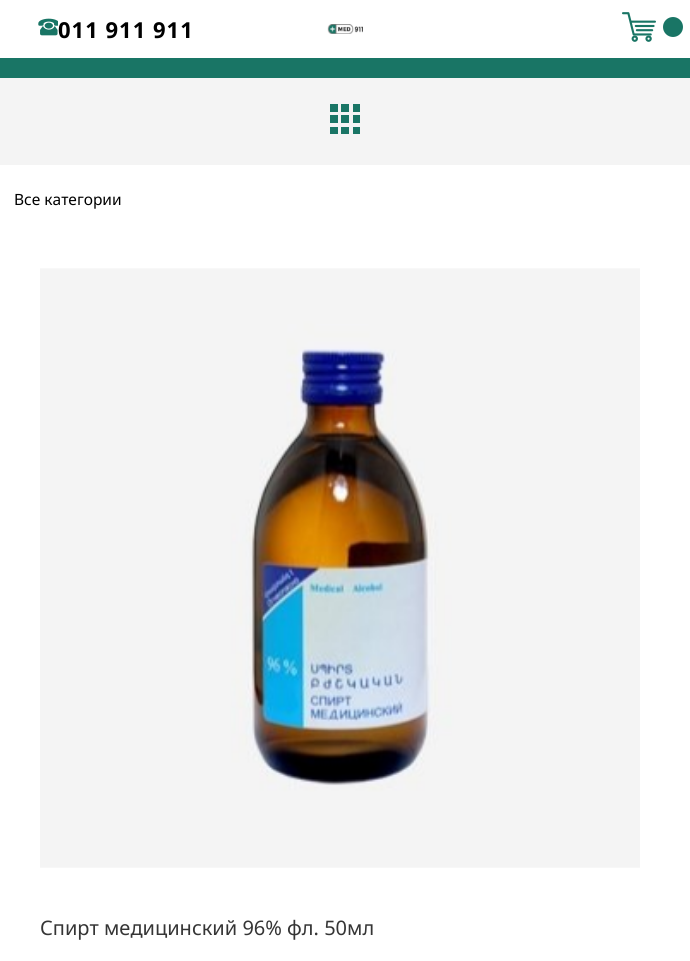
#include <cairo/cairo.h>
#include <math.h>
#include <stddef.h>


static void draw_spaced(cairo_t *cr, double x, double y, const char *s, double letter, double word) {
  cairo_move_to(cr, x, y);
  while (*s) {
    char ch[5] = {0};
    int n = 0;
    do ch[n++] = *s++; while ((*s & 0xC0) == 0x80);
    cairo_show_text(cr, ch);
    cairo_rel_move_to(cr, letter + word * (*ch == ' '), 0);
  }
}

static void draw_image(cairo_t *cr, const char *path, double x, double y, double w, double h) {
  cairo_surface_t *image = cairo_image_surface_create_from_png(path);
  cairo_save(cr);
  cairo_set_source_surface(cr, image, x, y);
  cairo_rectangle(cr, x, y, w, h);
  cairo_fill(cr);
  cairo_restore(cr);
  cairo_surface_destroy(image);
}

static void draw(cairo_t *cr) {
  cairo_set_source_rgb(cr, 1, 1, 1);
  cairo_paint(cr);
  draw_image(cr, "images/1.png", 38, 18, 20, 18);
  draw_image(cr, "images/2.png", 327, 24, 36, 10);
  draw_image(cr, "images/3.png", 622, 12, 34, 30);
  cairo_set_source_rgb(cr, 25 / 255.0, 117 / 255.0, 101 / 255.0);
  cairo_arc(cr, 673, 27, 10, 0, 2 * M_PI);
  cairo_fill(cr);
  cairo_rectangle(cr, 0, 58, 690, 20);
  cairo_fill(cr);
  cairo_set_source_rgb(cr, 244 / 255.0, 244 / 255.0, 244 / 255.0);
  cairo_rectangle(cr, 0, 78, 690, 87);
  cairo_fill(cr);
  draw_image(cr, "images/4.png", 330, 104, 30, 30);
  draw_image(cr, "images/5.png", 40, 268, 600, 600);
  cairo_select_font_face(cr, "Noto Sans", CAIRO_FONT_SLANT_NORMAL, CAIRO_FONT_WEIGHT_BOLD);
  cairo_set_font_size(cr, 22);
  cairo_set_source_rgb(cr, 0, 0, 0);
  draw_spaced(cr, 58, 38, "011 911 911", 1, 0);
  cairo_select_font_face(cr, "Noto Sans", CAIRO_FONT_SLANT_NORMAL, CAIRO_FONT_WEIGHT_NORMAL);
  cairo_set_font_size(cr, 15.5);
  cairo_move_to(cr, 14, 205);
  cairo_show_text(cr, "Все категории");
  cairo_set_font_size(cr, 20);
  cairo_set_source_rgb(cr, 53 / 255.0, 53 / 255.0, 53 / 255.0);
  cairo_move_to(cr, 40, 935);
  cairo_show_text(cr, "Спирт медицинский 96% фл. 50мл");
}

int main(void) {
  cairo_surface_t *surface = cairo_image_surface_create(CAIRO_FORMAT_RGB24, 690, 961);
  cairo_t *cr = cairo_create(surface);
  cairo_font_options_t *options = cairo_font_options_create();
  cairo_font_options_set_hint_metrics(options, CAIRO_HINT_METRICS_OFF);
  cairo_font_options_set_hint_style(options, CAIRO_HINT_STYLE_NONE);
  cairo_set_font_options(cr, options);
  cairo_set_miter_limit(cr, 4);
  draw(cr);
  cairo_surface_write_to_png(surface, "out.png");
  cairo_font_options_destroy(options);
  cairo_destroy(cr);
  cairo_surface_destroy(surface);
  return 0;
}
